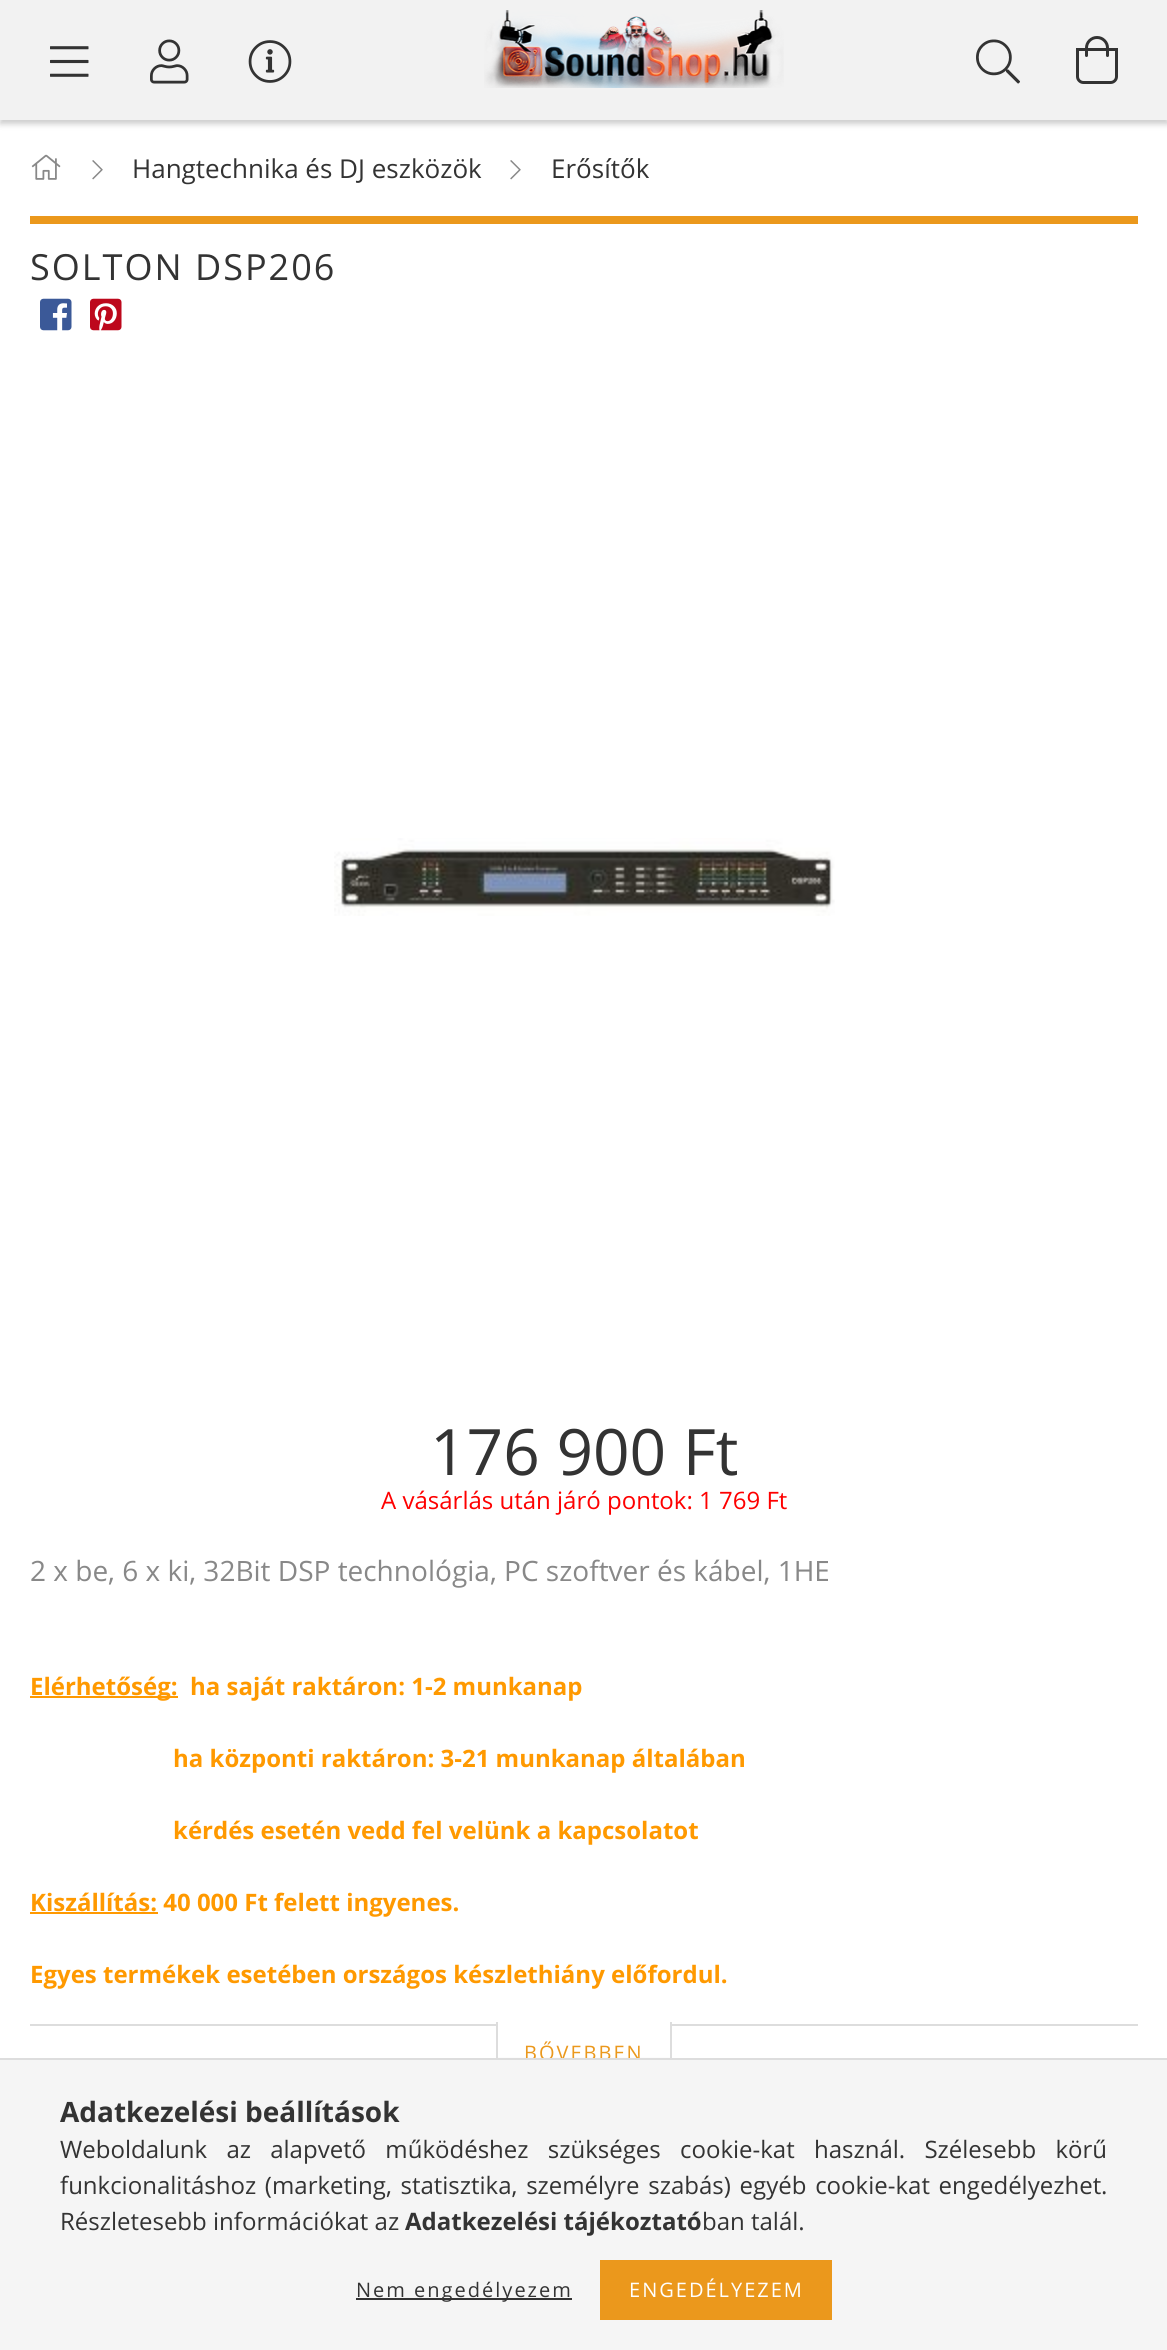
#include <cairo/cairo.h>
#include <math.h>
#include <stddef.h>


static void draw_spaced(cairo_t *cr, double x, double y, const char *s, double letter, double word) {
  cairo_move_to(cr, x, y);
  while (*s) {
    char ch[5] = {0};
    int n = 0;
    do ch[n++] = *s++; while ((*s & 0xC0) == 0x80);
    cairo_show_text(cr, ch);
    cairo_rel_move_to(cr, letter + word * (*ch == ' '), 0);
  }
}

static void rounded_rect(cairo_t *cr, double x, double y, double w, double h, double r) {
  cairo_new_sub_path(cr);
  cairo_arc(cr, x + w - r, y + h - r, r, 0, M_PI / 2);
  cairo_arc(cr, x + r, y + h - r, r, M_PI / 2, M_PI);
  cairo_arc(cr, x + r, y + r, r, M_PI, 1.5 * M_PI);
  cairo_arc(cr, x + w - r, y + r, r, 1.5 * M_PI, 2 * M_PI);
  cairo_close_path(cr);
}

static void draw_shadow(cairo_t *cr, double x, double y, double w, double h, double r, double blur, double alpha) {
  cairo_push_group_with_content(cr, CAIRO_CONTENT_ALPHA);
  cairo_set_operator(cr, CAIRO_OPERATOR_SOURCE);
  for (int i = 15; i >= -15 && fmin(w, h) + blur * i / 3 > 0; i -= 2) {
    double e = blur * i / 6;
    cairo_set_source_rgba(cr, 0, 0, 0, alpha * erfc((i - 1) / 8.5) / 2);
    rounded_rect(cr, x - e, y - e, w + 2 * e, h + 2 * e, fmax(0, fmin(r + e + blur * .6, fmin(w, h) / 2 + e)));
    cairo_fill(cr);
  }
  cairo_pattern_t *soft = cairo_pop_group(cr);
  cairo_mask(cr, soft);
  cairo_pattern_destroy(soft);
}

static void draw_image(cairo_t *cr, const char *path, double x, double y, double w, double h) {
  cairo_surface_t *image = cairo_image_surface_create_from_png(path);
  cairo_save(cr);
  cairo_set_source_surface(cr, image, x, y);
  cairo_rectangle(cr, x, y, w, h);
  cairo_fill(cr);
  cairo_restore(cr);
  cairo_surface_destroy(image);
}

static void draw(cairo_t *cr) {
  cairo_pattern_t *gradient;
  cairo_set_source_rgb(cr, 1, 1, 1);
  cairo_paint(cr);
  cairo_set_source_rgb(cr, 0, 0, 0);
  draw_shadow(cr, 0, 4, 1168, 120, 0, 3, 0.2);
  cairo_set_source_rgb(cr, 242 / 255.0, 242 / 255.0, 242 / 255.0);
  cairo_rectangle(cr, 0, 0, 1167, 120);
  cairo_fill(cr);
  draw_image(cr, "images/1.png", 50, 46, 39, 31);
  draw_image(cr, "images/2.png", 150, 39, 39, 45);
  draw_image(cr, "images/3.png", 248, 40, 44, 43);
  draw_image(cr, "images/4.png", 484, 10, 300, 78);
  draw_image(cr, "images/5.png", 976, 39, 44, 45);
  draw_image(cr, "images/6.png", 1076, 36, 42, 48);
  draw_image(cr, "images/7.png", 31, 154, 30, 26);
  draw_image(cr, "images/8.png", 92, 160, 11, 20);
  draw_image(cr, "images/8.png", 510, 160, 11, 20);
  cairo_set_source_rgb(cr, 235 / 255.0, 152 / 255.0, 28 / 255.0);
  cairo_rectangle(cr, 30, 216, 1108, 8);
  cairo_fill(cr);
  draw_image(cr, "images/9.png", 40, 298, 32, 33);
  draw_image(cr, "images/10.png", 90, 298, 32, 33);
  draw_image(cr, "images/11.png", 334, 838, 501, 78);
  cairo_set_source_rgb(cr, 1, 153 / 255.0, 0);
  cairo_rectangle(cr, 30, 1696, 148, 2);
  cairo_fill(cr);
  cairo_rectangle(cr, 30, 1912, 128, 2);
  cairo_fill(cr);
  gradient = cairo_pattern_create_linear(584, 2082, 584, 2024);
  cairo_pattern_add_color_stop_rgba(gradient, 0, 241 / 255.0, 241 / 255.0, 241 / 255.0, 1);
  cairo_pattern_add_color_stop_rgba(gradient, 0.52, 1, 1, 1, 1);
  cairo_pattern_add_color_stop_rgba(gradient, 1, 1, 1, 1, 1);
  cairo_set_source(cr, gradient);
  cairo_pattern_destroy(gradient);
  cairo_rectangle(cr, 498, 2057, 172, 1);
  cairo_fill(cr);
  cairo_set_source_rgb(cr, 221 / 255.0, 221 / 255.0, 221 / 255.0);
  cairo_rectangle(cr, 670, 2022, 2, 36);
  cairo_fill(cr);
  cairo_rectangle(cr, 496, 2022, 2, 36);
  cairo_fill(cr);
  cairo_rectangle(cr, 30, 2024, 468, 2);
  cairo_fill(cr);
  cairo_rectangle(cr, 670, 2024, 468, 2);
  cairo_fill(cr);
  cairo_select_font_face(cr, "Open Sans", CAIRO_FONT_SLANT_NORMAL, CAIRO_FONT_WEIGHT_NORMAL);
  cairo_set_font_size(cr, 26);
  cairo_set_source_rgb(cr, 51 / 255.0, 51 / 255.0, 51 / 255.0);
  cairo_move_to(cr, 132, 178);
  cairo_show_text(cr, "Hangtechnika és DJ eszközök");
  cairo_move_to(cr, 551, 178);
  cairo_show_text(cr, "Erősítők");
  cairo_set_font_size(cr, 36);
  draw_spaced(cr, 30, 280, "SOLTON DSP206", 2, 0);
  cairo_set_font_size(cr, 64);
  cairo_move_to(cr, 430, 1475);
  cairo_show_text(cr, "176 900 Ft");
  cairo_set_font_size(cr, 24);
  cairo_set_source_rgb(cr, 254 / 255.0, 0, 0);
  cairo_move_to(cr, 381, 1509);
  cairo_show_text(cr, "A vásárlás után járó pontok: 1 769 Ft");
  cairo_set_font_size(cr, 28);
  cairo_set_source_rgb(cr, 136 / 255.0, 136 / 255.0, 136 / 255.0);
  cairo_move_to(cr, 30, 1581);
  cairo_show_text(cr, "2 x be, 6 x ki, 32Bit DSP technológia, PC szoftver és kábel, 1HE");
  cairo_select_font_face(cr, "Open Sans", CAIRO_FONT_SLANT_NORMAL, CAIRO_FONT_WEIGHT_BOLD);
  cairo_set_font_size(cr, 24);
  cairo_set_source_rgb(cr, 1, 153 / 255.0, 0);
  cairo_move_to(cr, 30, 1695);
  cairo_show_text(cr, "Elérhetőség:");
  cairo_move_to(cr, 190, 1695);
  cairo_show_text(cr, "ha saját raktáron: 1-2 munkanap");
  cairo_move_to(cr, 173, 1767);
  cairo_show_text(cr, "ha központi raktáron: 3-21 munkanap általában");
  cairo_move_to(cr, 173, 1839);
  cairo_show_text(cr, "kérdés esetén vedd fel velünk a kapcsolatot");
  cairo_move_to(cr, 30, 1911);
  cairo_show_text(cr, "Kiszállítás: 40 000 Ft felett ingyenes.");
  cairo_move_to(cr, 30, 1983);
  cairo_show_text(cr, "Egyes termékek esetében országos készlethiány előfordul.");
  cairo_select_font_face(cr, "Open Sans", CAIRO_FONT_SLANT_NORMAL, CAIRO_FONT_WEIGHT_NORMAL);
  cairo_set_font_size(cr, 20);
  cairo_set_source_rgb(cr, 235 / 255.0, 152 / 255.0, 28 / 255.0);
  draw_spaced(cr, 524, 2060, "BŐVEBBEN", 2, 0);
  cairo_set_source_rgb(cr, 245 / 255.0, 245 / 255.0, 245 / 255.0);
  cairo_rectangle(cr, 0, 2060, 1167, 290);
  cairo_fill(cr);
  cairo_set_source_rgb(cr, 221 / 255.0, 221 / 255.0, 221 / 255.0);
  cairo_rectangle(cr, 0, 2058, 1167, 2);
  cairo_fill(cr);
  cairo_select_font_face(cr, "Open Sans", CAIRO_FONT_SLANT_NORMAL, CAIRO_FONT_WEIGHT_BOLD);
  cairo_set_font_size(cr, 28);
  cairo_set_source_rgb(cr, 51 / 255.0, 51 / 255.0, 51 / 255.0);
  cairo_move_to(cr, 60, 2122);
  cairo_show_text(cr, "Adatkezelési beállítások");
  cairo_select_font_face(cr, "Open Sans", CAIRO_FONT_SLANT_NORMAL, CAIRO_FONT_WEIGHT_NORMAL);
  cairo_set_font_size(cr, 24);
  draw_spaced(cr, 60, 2158, "Weboldalunk az alapvető működéshez szükséges cookie-kat használ. Szélesebb körű", 0, 13);
  draw_spaced(cr, 60, 2194, "funkcionalitáshoz (marketing, statisztika, személyre szabás) egyéb cookie-kat engedélyezhet.", 0, 2.5);
  cairo_move_to(cr, 60, 2230);
  cairo_show_text(cr, "Részletesebb információkat az");
  cairo_select_font_face(cr, "Open Sans", CAIRO_FONT_SLANT_NORMAL, CAIRO_FONT_WEIGHT_BOLD);
  cairo_move_to(cr, 405, 2230);
  cairo_show_text(cr, "Adatkezelési tájékoztató");
  cairo_select_font_face(cr, "Open Sans", CAIRO_FONT_SLANT_NORMAL, CAIRO_FONT_WEIGHT_NORMAL);
  cairo_move_to(cr, 702, 2230);
  cairo_show_text(cr, "ban talál.");
  cairo_rectangle(cr, 356, 2298, 216, 2);
  cairo_fill(cr);
  cairo_set_font_size(cr, 20);
  draw_spaced(cr, 356, 2297, "Nem engedélyezem", 2, 0);
  cairo_set_source_rgb(cr, 235 / 255.0, 152 / 255.0, 28 / 255.0);
  cairo_rectangle(cr, 600, 2260, 232, 60);
  cairo_fill(cr);
  cairo_set_source_rgb(cr, 1, 1, 1);
  draw_spaced(cr, 629, 2297, "ENGEDÉLYEZEM", 2, 0);
}

int main(void) {
  cairo_surface_t *surface = cairo_image_surface_create(CAIRO_FORMAT_RGB24, 1167, 2350);
  cairo_t *cr = cairo_create(surface);
  cairo_font_options_t *options = cairo_font_options_create();
  cairo_font_options_set_hint_metrics(options, CAIRO_HINT_METRICS_OFF);
  cairo_font_options_set_hint_style(options, CAIRO_HINT_STYLE_NONE);
  cairo_set_font_options(cr, options);
  cairo_set_miter_limit(cr, 4);
  draw(cr);
  cairo_surface_write_to_png(surface, "out.png");
  cairo_font_options_destroy(options);
  cairo_destroy(cr);
  cairo_surface_destroy(surface);
  return 0;
}
